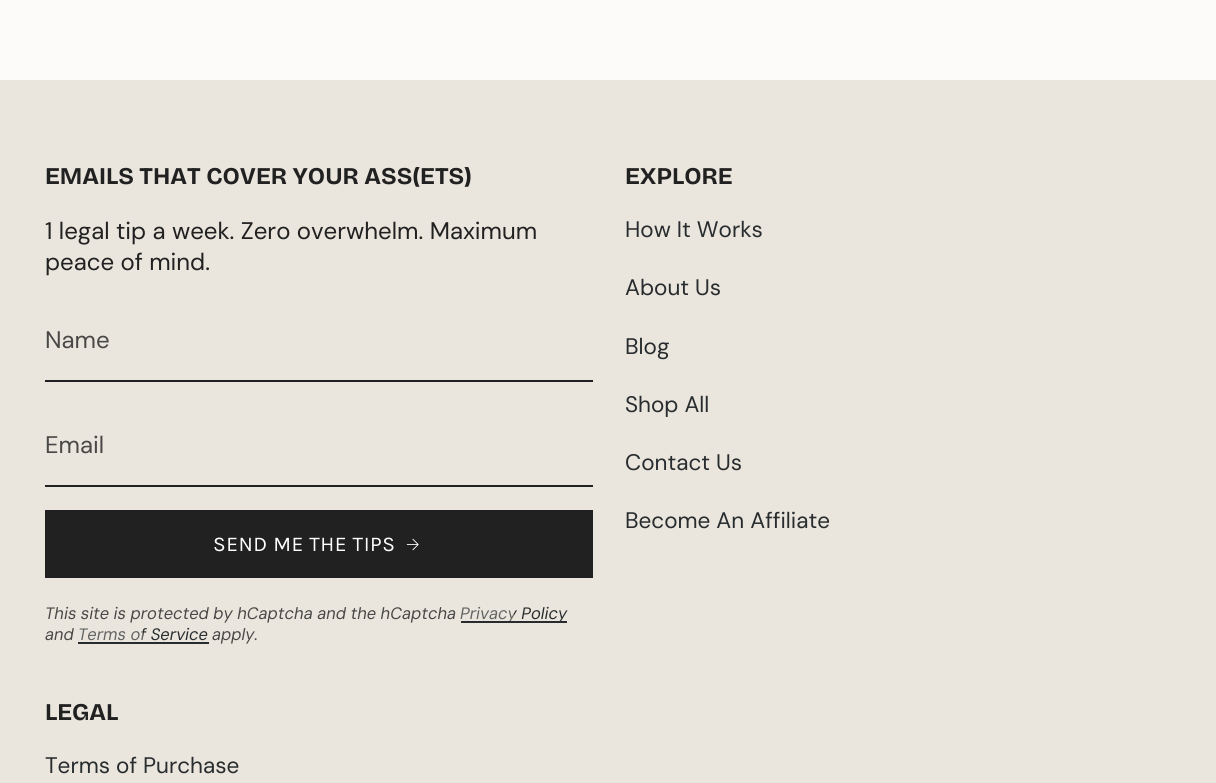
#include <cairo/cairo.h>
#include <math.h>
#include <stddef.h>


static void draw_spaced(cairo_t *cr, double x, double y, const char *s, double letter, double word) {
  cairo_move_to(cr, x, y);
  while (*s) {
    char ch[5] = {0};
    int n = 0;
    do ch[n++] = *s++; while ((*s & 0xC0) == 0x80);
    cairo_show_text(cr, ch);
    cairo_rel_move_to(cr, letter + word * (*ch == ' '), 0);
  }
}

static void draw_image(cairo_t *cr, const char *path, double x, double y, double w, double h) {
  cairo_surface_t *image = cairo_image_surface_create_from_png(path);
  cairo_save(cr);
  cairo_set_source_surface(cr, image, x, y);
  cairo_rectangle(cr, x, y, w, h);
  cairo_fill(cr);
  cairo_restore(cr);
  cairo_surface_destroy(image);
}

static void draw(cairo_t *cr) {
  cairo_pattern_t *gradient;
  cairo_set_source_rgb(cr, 252 / 255.0, 251 / 255.0, 249 / 255.0);
  cairo_paint(cr);
  cairo_set_source_rgb(cr, 234 / 255.0, 230 / 255.0, 221 / 255.0);
  cairo_rectangle(cr, 0, 80, 1216, 703);
  cairo_fill(cr);
  cairo_set_source_rgb(cr, 33 / 255.0, 33 / 255.0, 33 / 255.0);
  cairo_rectangle(cr, 45, 380, 548, 2);
  cairo_fill(cr);
  cairo_rectangle(cr, 45, 485, 548, 2);
  cairo_fill(cr);
  cairo_rectangle(cr, 45, 510, 548, 68);
  cairo_fill(cr);
  draw_image(cr, "images/1.png", 406, 538, 13, 13);
  cairo_set_source_rgb(cr, 40 / 255.0, 44 / 255.0, 46 / 255.0);
  cairo_rectangle(cr, 78, 642, 131, 2);
  cairo_fill(cr);
  cairo_select_font_face(cr, "Bricolage Grotesque", CAIRO_FONT_SLANT_NORMAL, CAIRO_FONT_WEIGHT_BOLD);
  cairo_set_font_size(cr, 24);
  cairo_set_source_rgb(cr, 33 / 255.0, 33 / 255.0, 33 / 255.0);
  cairo_move_to(cr, 45, 184);
  cairo_show_text(cr, "EMAILS THAT COVER YOUR ASS(ETS)");
  cairo_select_font_face(cr, "DM Sans", CAIRO_FONT_SLANT_NORMAL, CAIRO_FONT_WEIGHT_NORMAL);
  cairo_move_to(cr, 45, 239);
  cairo_show_text(cr, "1 legal tip a week. Zero overwhelm. Maximum");
  cairo_move_to(cr, 45, 270);
  cairo_show_text(cr, "peace of mind.");
  cairo_set_source_rgb(cr, 73 / 255.0, 72 / 255.0, 71 / 255.0);
  cairo_move_to(cr, 45, 348);
  cairo_show_text(cr, "Name");
  cairo_move_to(cr, 45, 453);
  cairo_show_text(cr, "Email");
  cairo_select_font_face(cr, "Karla", CAIRO_FONT_SLANT_NORMAL, CAIRO_FONT_WEIGHT_NORMAL);
  cairo_set_font_size(cr, 21);
  cairo_set_source_rgb(cr, 1, 1, 1);
  draw_spaced(cr, 213, 551, "SEND ME THE TIPS", 0.5, 0);
  cairo_select_font_face(cr, "DM Sans", CAIRO_FONT_SLANT_ITALIC, CAIRO_FONT_WEIGHT_NORMAL);
  cairo_set_font_size(cr, 16.5);
  cairo_set_source_rgb(cr, 73 / 255.0, 72 / 255.0, 71 / 255.0);
  cairo_move_to(cr, 45, 619);
  cairo_show_text(cr, "This site is protected by hCaptcha and the hCaptcha");
  gradient = cairo_pattern_create_linear(460, 613, 567, 613);
  cairo_pattern_add_color_stop_rgba(gradient, 0, 98 / 255.0, 100 / 255.0, 99 / 255.0, 1);
  cairo_pattern_add_color_stop_rgba(gradient, 0.5, 98 / 255.0, 100 / 255.0, 99 / 255.0, 1);
  cairo_pattern_add_color_stop_rgba(gradient, 0.5, 40 / 255.0, 44 / 255.0, 46 / 255.0, 1);
  cairo_pattern_add_color_stop_rgba(gradient, 1, 40 / 255.0, 44 / 255.0, 46 / 255.0, 1);
  cairo_set_source(cr, gradient);
  cairo_pattern_destroy(gradient);
  cairo_move_to(cr, 460, 619);
  cairo_show_text(cr, "Privacy Policy");
  cairo_set_source_rgb(cr, 40 / 255.0, 44 / 255.0, 46 / 255.0);
  cairo_rectangle(cr, 461, 621, 106, 2);
  cairo_fill(cr);
  cairo_set_source_rgb(cr, 73 / 255.0, 72 / 255.0, 71 / 255.0);
  cairo_move_to(cr, 45, 640);
  cairo_show_text(cr, "and");
  gradient = cairo_pattern_create_linear(78, 634, 208, 634);
  cairo_pattern_add_color_stop_rgba(gradient, 0, 98 / 255.0, 100 / 255.0, 99 / 255.0, 1);
  cairo_pattern_add_color_stop_rgba(gradient, 0.5, 98 / 255.0, 100 / 255.0, 99 / 255.0, 1);
  cairo_pattern_add_color_stop_rgba(gradient, 0.5, 40 / 255.0, 44 / 255.0, 46 / 255.0, 1);
  cairo_pattern_add_color_stop_rgba(gradient, 1, 40 / 255.0, 44 / 255.0, 46 / 255.0, 1);
  cairo_set_source(cr, gradient);
  cairo_pattern_destroy(gradient);
  cairo_move_to(cr, 78, 640);
  cairo_show_text(cr, "Terms of Service");
  cairo_set_source_rgb(cr, 73 / 255.0, 72 / 255.0, 71 / 255.0);
  cairo_move_to(cr, 212, 640);
  cairo_show_text(cr, "apply.");
  cairo_select_font_face(cr, "Bricolage Grotesque", CAIRO_FONT_SLANT_NORMAL, CAIRO_FONT_WEIGHT_BOLD);
  cairo_set_font_size(cr, 24);
  cairo_set_source_rgb(cr, 33 / 255.0, 33 / 255.0, 33 / 255.0);
  cairo_move_to(cr, 625, 184);
  cairo_show_text(cr, "EXPLORE");
  cairo_select_font_face(cr, "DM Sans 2", CAIRO_FONT_SLANT_NORMAL, CAIRO_FONT_WEIGHT_NORMAL);
  cairo_set_font_size(cr, 22.5);
  cairo_set_source_rgb(cr, 40 / 255.0, 44 / 255.0, 46 / 255.0);
  cairo_move_to(cr, 625, 237);
  cairo_show_text(cr, "How It Works");
  cairo_move_to(cr, 625, 295);
  cairo_show_text(cr, "About Us");
  cairo_move_to(cr, 625, 354);
  cairo_show_text(cr, "Blog");
  cairo_move_to(cr, 625, 412);
  cairo_show_text(cr, "Shop All");
  cairo_move_to(cr, 625, 470);
  cairo_show_text(cr, "Contact Us");
  cairo_move_to(cr, 625, 528);
  cairo_show_text(cr, "Become An Affiliate");
  cairo_select_font_face(cr, "Bricolage Grotesque", CAIRO_FONT_SLANT_NORMAL, CAIRO_FONT_WEIGHT_BOLD);
  cairo_set_font_size(cr, 24);
  cairo_set_source_rgb(cr, 33 / 255.0, 33 / 255.0, 33 / 255.0);
  cairo_move_to(cr, 45, 720);
  cairo_show_text(cr, "LEGAL");
  cairo_select_font_face(cr, "DM Sans 2", CAIRO_FONT_SLANT_NORMAL, CAIRO_FONT_WEIGHT_NORMAL);
  cairo_set_font_size(cr, 22.5);
  cairo_set_source_rgb(cr, 40 / 255.0, 44 / 255.0, 46 / 255.0);
  cairo_move_to(cr, 45, 773);
  cairo_show_text(cr, "Terms of Purchase");
}

int main(void) {
  cairo_surface_t *surface = cairo_image_surface_create(CAIRO_FORMAT_RGB24, 1216, 783);
  cairo_t *cr = cairo_create(surface);
  cairo_font_options_t *options = cairo_font_options_create();
  cairo_font_options_set_hint_metrics(options, CAIRO_HINT_METRICS_OFF);
  cairo_font_options_set_hint_style(options, CAIRO_HINT_STYLE_NONE);
  cairo_set_font_options(cr, options);
  cairo_set_miter_limit(cr, 4);
  draw(cr);
  cairo_surface_write_to_png(surface, "out.png");
  cairo_font_options_destroy(options);
  cairo_destroy(cr);
  cairo_surface_destroy(surface);
  return 0;
}
